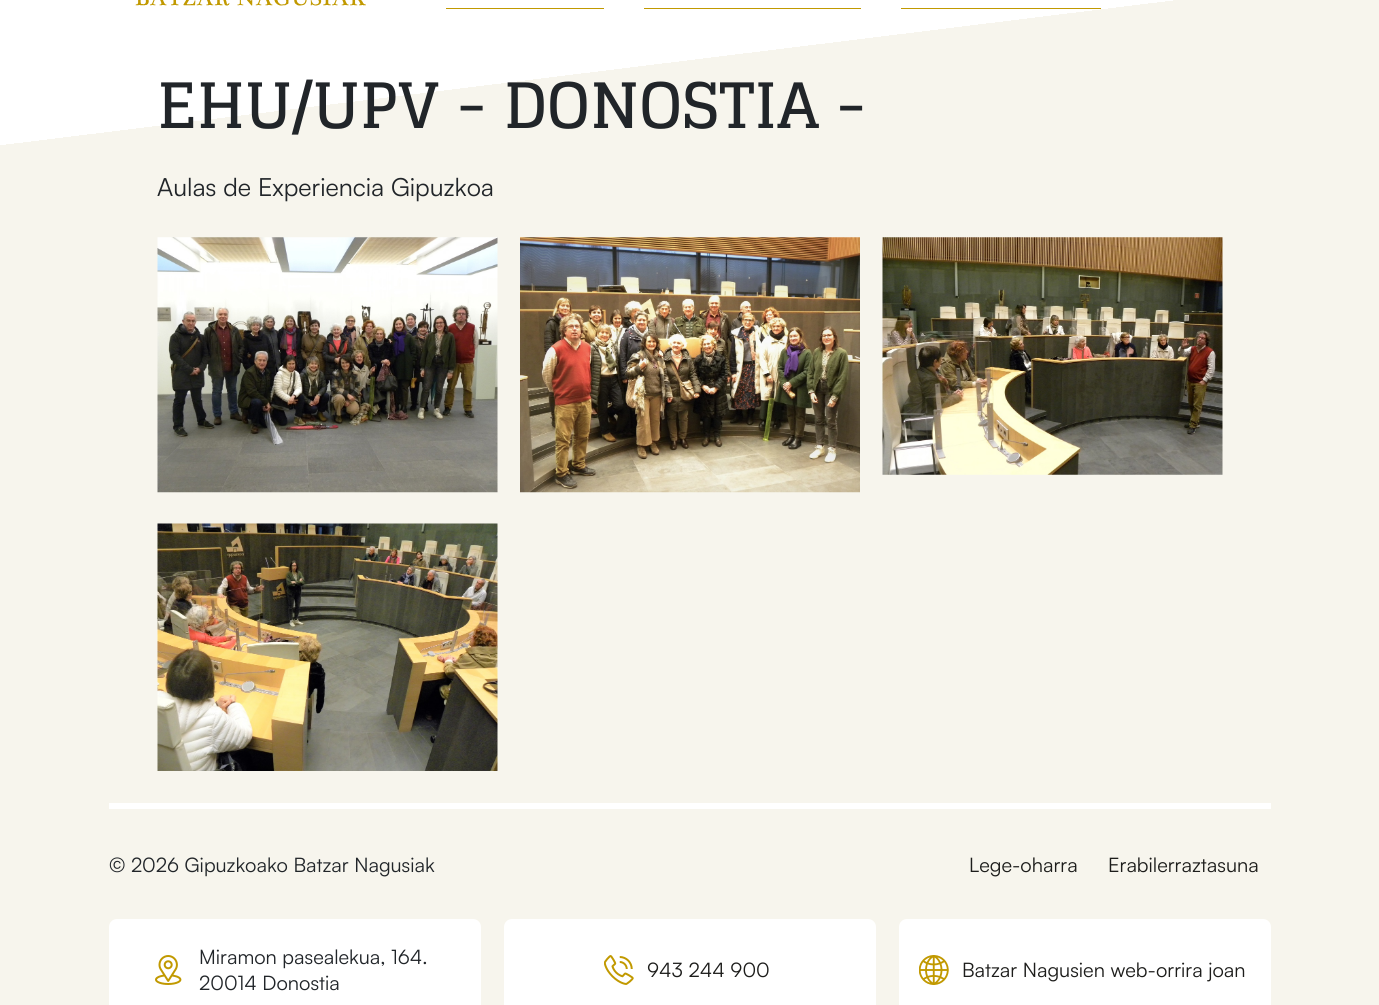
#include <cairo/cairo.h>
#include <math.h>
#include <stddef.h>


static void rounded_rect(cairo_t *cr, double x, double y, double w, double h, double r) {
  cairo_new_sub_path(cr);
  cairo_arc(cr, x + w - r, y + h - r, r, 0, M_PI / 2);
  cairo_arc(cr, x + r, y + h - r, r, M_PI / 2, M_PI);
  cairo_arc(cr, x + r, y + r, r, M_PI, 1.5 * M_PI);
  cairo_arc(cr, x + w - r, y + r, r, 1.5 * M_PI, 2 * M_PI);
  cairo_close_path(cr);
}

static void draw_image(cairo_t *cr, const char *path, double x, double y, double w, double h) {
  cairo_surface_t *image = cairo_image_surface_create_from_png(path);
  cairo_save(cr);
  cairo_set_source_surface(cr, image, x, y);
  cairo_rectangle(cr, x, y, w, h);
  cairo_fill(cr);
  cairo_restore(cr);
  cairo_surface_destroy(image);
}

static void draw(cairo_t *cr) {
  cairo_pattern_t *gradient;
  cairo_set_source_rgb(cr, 1, 1, 1);
  cairo_paint(cr);
  gradient = cairo_pattern_create_linear(605, -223, 775, 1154);
  cairo_pattern_add_color_stop_rgba(gradient, 0, 1, 1, 1, 1);
  cairo_pattern_add_color_stop_rgba(gradient, 0.21, 1, 1, 1, 1);
  cairo_pattern_add_color_stop_rgba(gradient, 0.21, 247 / 255.0, 245 / 255.0, 237 / 255.0, 1);
  cairo_set_source(cr, gradient);
  cairo_pattern_destroy(gradient);
  cairo_rectangle(cr, 0, 0, 1379, 1005);
  cairo_fill(cr);
  draw_image(cr, "images/1.png", 135, 0, 231, 6);
  cairo_set_source_rgb(cr, 193 / 255.0, 153 / 255.0, 0);
  cairo_rectangle(cr, 446, 8, 158, 1);
  cairo_fill(cr);
  cairo_rectangle(cr, 644, 8, 217, 1);
  cairo_fill(cr);
  cairo_rectangle(cr, 901, 8, 200, 1);
  cairo_fill(cr);
  draw_image(cr, "images/2.png", 157, 237, 341, 256);
  draw_image(cr, "images/3.png", 520, 237, 340, 256);
  draw_image(cr, "images/4.png", 882, 237, 341, 238);
  draw_image(cr, "images/5.png", 157, 523, 341, 248);
  cairo_set_source_rgb(cr, 1, 1, 1);
  cairo_rectangle(cr, 109, 803, 1162, 6);
  cairo_fill(cr);
  rounded_rect(cr, 109, 919, 372, 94, 8);
  cairo_fill(cr);
  draw_image(cr, "images/6.png", 155, 955, 27, 30);
  rounded_rect(cr, 504, 919, 372, 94, 8);
  cairo_fill(cr);
  draw_image(cr, "images/7.png", 604, 955, 30, 30);
  rounded_rect(cr, 899, 919, 372, 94, 8);
  cairo_fill(cr);
  draw_image(cr, "images/8.png", 919, 955, 30, 30);
  cairo_select_font_face(cr, "Glegoo", CAIRO_FONT_SLANT_NORMAL, CAIRO_FONT_WEIGHT_BOLD);
  cairo_set_font_size(cr, 62.5);
  cairo_set_source_rgb(cr, 33 / 255.0, 37 / 255.0, 41 / 255.0);
  cairo_move_to(cr, 157, 128);
  cairo_show_text(cr, "EHU/UPV - DONOSTIA -");
  cairo_select_font_face(cr, "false", CAIRO_FONT_SLANT_NORMAL, CAIRO_FONT_WEIGHT_NORMAL);
  cairo_set_font_size(cr, 25);
  cairo_move_to(cr, 157, 196);
  cairo_show_text(cr, "Aulas de Experiencia Gipuzkoa");
  cairo_set_font_size(cr, 20);
  cairo_move_to(cr, 109, 872);
  cairo_show_text(cr, "© 2026 Gipuzkoako Batzar Nagusiak");
  cairo_set_source_rgb(cr, 29 / 255.0, 29 / 255.0, 27 / 255.0);
  cairo_move_to(cr, 969, 872);
  cairo_show_text(cr, "Lege-oharra");
  cairo_move_to(cr, 1108, 872);
  cairo_show_text(cr, "Erabilerraztasuna");
  cairo_set_source_rgb(cr, 33 / 255.0, 37 / 255.0, 41 / 255.0);
  cairo_move_to(cr, 199, 964);
  cairo_show_text(cr, "Miramon pasealekua, 164.");
  cairo_move_to(cr, 199, 990);
  cairo_show_text(cr, "20014 Donostia");
  cairo_set_source_rgb(cr, 29 / 255.0, 29 / 255.0, 27 / 255.0);
  cairo_move_to(cr, 647, 977);
  cairo_show_text(cr, "943 244 900");
  cairo_move_to(cr, 962, 977);
  cairo_show_text(cr, "Batzar Nagusien web-orrira joan");
}

int main(void) {
  cairo_surface_t *surface = cairo_image_surface_create(CAIRO_FORMAT_RGB24, 1379, 1005);
  cairo_t *cr = cairo_create(surface);
  cairo_font_options_t *options = cairo_font_options_create();
  cairo_font_options_set_hint_metrics(options, CAIRO_HINT_METRICS_OFF);
  cairo_font_options_set_hint_style(options, CAIRO_HINT_STYLE_NONE);
  cairo_set_font_options(cr, options);
  cairo_set_miter_limit(cr, 4);
  draw(cr);
  cairo_surface_write_to_png(surface, "out.png");
  cairo_font_options_destroy(options);
  cairo_destroy(cr);
  cairo_surface_destroy(surface);
  return 0;
}
